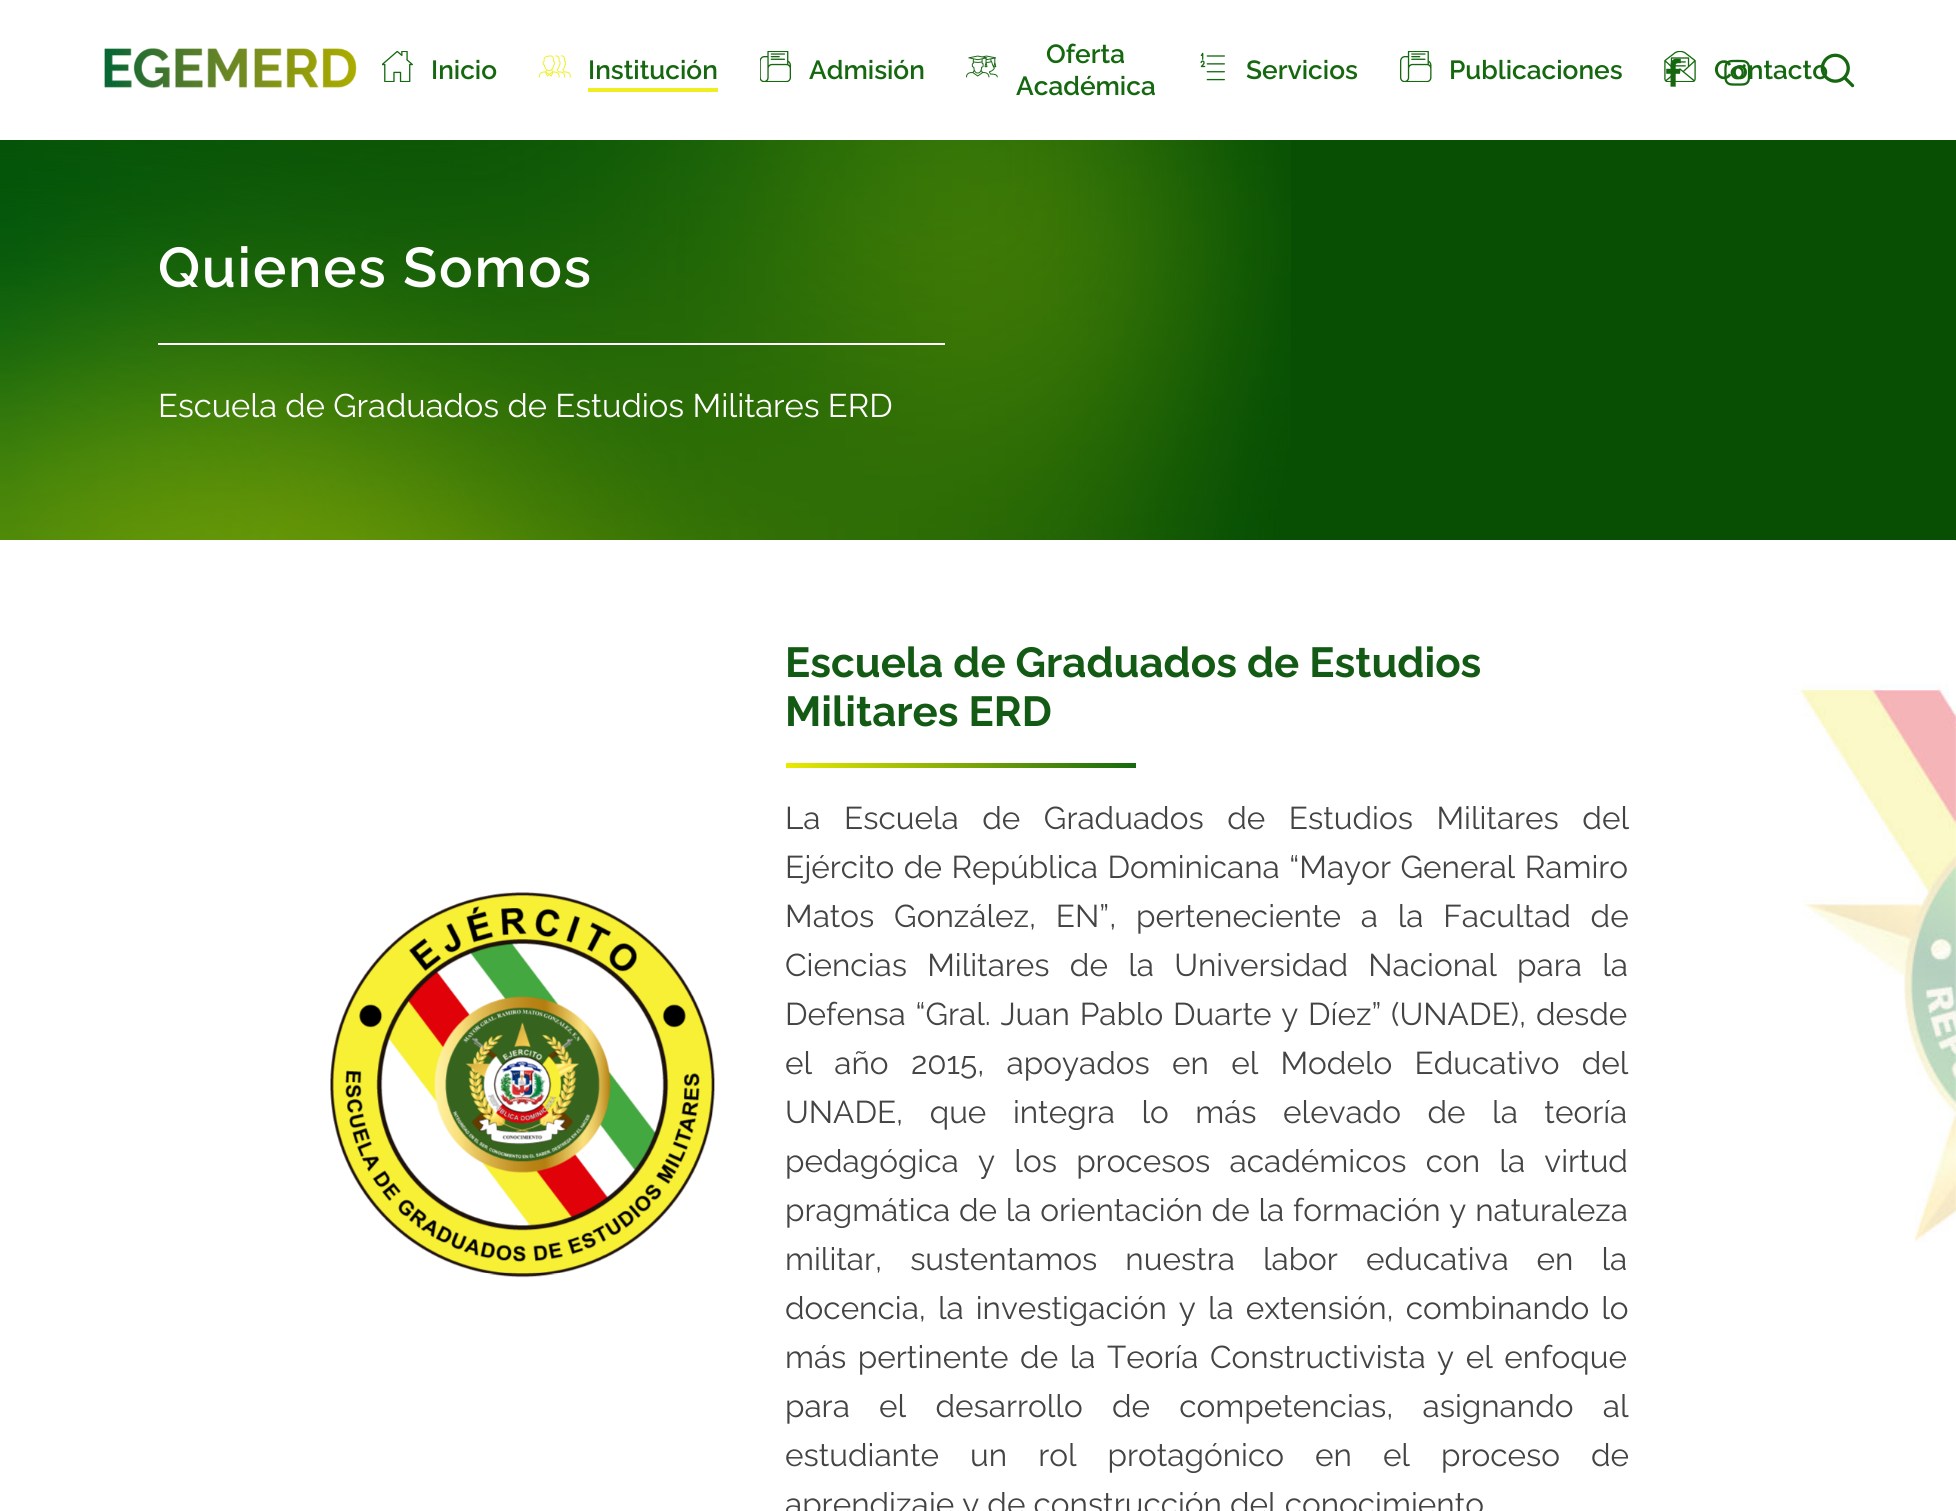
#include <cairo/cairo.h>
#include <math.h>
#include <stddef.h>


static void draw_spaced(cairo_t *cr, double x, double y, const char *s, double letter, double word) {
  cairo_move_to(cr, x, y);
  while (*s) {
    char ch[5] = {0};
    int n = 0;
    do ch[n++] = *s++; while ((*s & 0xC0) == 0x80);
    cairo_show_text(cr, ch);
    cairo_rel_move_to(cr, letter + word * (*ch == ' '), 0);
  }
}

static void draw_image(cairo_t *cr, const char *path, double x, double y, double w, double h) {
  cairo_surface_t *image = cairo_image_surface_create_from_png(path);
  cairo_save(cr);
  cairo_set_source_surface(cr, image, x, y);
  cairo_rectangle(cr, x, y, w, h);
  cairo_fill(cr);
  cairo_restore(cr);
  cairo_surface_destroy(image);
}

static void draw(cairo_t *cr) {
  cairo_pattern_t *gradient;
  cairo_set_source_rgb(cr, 1, 1, 1);
  cairo_paint(cr);
  draw_image(cr, "images/1.png", 104, 48, 253, 41);
  draw_image(cr, "images/2.png", 382, 51, 31, 31);
  draw_image(cr, "images/3.png", 539, 55, 32, 23);
  cairo_set_source_rgb(cr, 238 / 255.0, 238 / 255.0, 34 / 255.0);
  cairo_rectangle(cr, 588, 88, 130, 4);
  cairo_fill(cr);
  draw_image(cr, "images/4.png", 760, 51, 31, 31);
  draw_image(cr, "images/5.png", 966, 55, 32, 23);
  draw_image(cr, "images/6.png", 1200, 52, 25, 29);
  draw_image(cr, "images/7.png", 1400, 51, 32, 31);
  draw_image(cr, "images/8.png", 1664, 51, 32, 31);
  draw_image(cr, "images/9.png", 1666, 58, 15, 29);
  cairo_set_source_rgb(cr, 8 / 255.0, 79 / 255.0, 3 / 255.0);
  cairo_rectangle(cr, 0, 140, 1956, 401);
  cairo_fill(cr);
  draw_image(cr, "images/12.png", 0, 140, 1291, 400);
  cairo_set_source_rgb(cr, 1, 1, 1);
  cairo_rectangle(cr, 158, 343, 787, 2);
  cairo_fill(cr);
  draw_image(cr, "images/13.png", 0, 540, 1956, 703);
  draw_image(cr, "images/14.png", 330, 892, 385, 386);
  gradient = cairo_pattern_create_linear(786, 766, 1136, 766);
  cairo_pattern_add_color_stop_rgba(gradient, 0, 234 / 255.0, 234 / 255.0, 0, 1);
  cairo_pattern_add_color_stop_rgba(gradient, 1, 21 / 255.0, 104 / 255.0, 15 / 255.0, 1);
  cairo_set_source(cr, gradient);
  cairo_pattern_destroy(gradient);
  cairo_rectangle(cr, 786, 763, 350, 5);
  cairo_fill(cr);
  cairo_select_font_face(cr, "Raleway SemiBold", CAIRO_FONT_SLANT_NORMAL, CAIRO_FONT_WEIGHT_NORMAL);
  cairo_set_font_size(cr, 26.25);
  cairo_set_source_rgb(cr, 21 / 255.0, 104 / 255.0, 15 / 255.0);
  cairo_move_to(cr, 431, 79);
  cairo_show_text(cr, "Inicio");
  cairo_move_to(cr, 588, 79);
  cairo_show_text(cr, "Institución");
  cairo_move_to(cr, 809, 79);
  cairo_show_text(cr, "Admisión");
  cairo_move_to(cr, 1046, 63);
  cairo_show_text(cr, "Oferta");
  cairo_move_to(cr, 1016, 95);
  cairo_show_text(cr, "Académica");
  cairo_move_to(cr, 1246, 79);
  cairo_show_text(cr, "Servicios");
  cairo_move_to(cr, 1449, 79);
  cairo_show_text(cr, "Publicaciones");
  cairo_move_to(cr, 1714, 79);
  cairo_show_text(cr, "Contacto");
  draw_image(cr, "images/10.png", 1724, 59, 26, 27);
  draw_image(cr, "images/11.png", 1820, 53, 35, 35);
  cairo_set_font_size(cr, 56);
  cairo_set_source_rgb(cr, 1, 1, 1);
  draw_spaced(cr, 158, 287, "Quienes Somos", 1.75, 0);
  cairo_select_font_face(cr, "Raleway", CAIRO_FONT_SLANT_NORMAL, CAIRO_FONT_WEIGHT_NORMAL);
  cairo_set_font_size(cr, 32.7);
  cairo_move_to(cr, 158, 417);
  cairo_show_text(cr, "Escuela de Graduados de Estudios Militares ERD");
  cairo_select_font_face(cr, "Raleway", CAIRO_FONT_SLANT_NORMAL, CAIRO_FONT_WEIGHT_BOLD);
  cairo_set_font_size(cr, 42);
  cairo_set_source_rgb(cr, 19 / 255.0, 91 / 255.0, 20 / 255.0);
  cairo_move_to(cr, 785, 677);
  cairo_show_text(cr, "Escuela de Graduados de Estudios");
  cairo_move_to(cr, 785, 726);
  cairo_show_text(cr, "Militares ERD");
  cairo_select_font_face(cr, "Raleway", CAIRO_FONT_SLANT_NORMAL, CAIRO_FONT_WEIGHT_NORMAL);
  cairo_set_font_size(cr, 31.5);
  cairo_set_source_rgb(cr, 68 / 255.0, 68 / 255.0, 68 / 255.0);
  draw_spaced(cr, 785, 829, "La Escuela de Graduados de Estudios Militares del", 0, 15.5);
  draw_spaced(cr, 785, 878, "Ejército de República Dominicana “Mayor General Ramiro", 0, 1.5);
  draw_spaced(cr, 785, 927, "Matos González, EN”, perteneciente a la Facultad de", 0, 11.75);
  draw_spaced(cr, 785, 976, "Ciencias Militares de la Universidad Nacional para la", 0, 12.25);
  draw_spaced(cr, 785, 1025, "Defensa “Gral. Juan Pablo Duarte y Díez” (UNADE), desde", 0, 1.75);
  draw_spaced(cr, 785, 1074, "el año 2015, apoyados en el Modelo Educativo del", 0, 14.25);
  draw_spaced(cr, 785, 1123, "UNADE, que integra lo más elevado de la teoría", 0, 18.5);
  draw_spaced(cr, 785, 1172, "pedagógica y los procesos académicos con la virtud", 0, 11.25);
  draw_spaced(cr, 785, 1221, "pragmática de la orientación de la formación y naturaleza", 0, 0.75);
  draw_spaced(cr, 785, 1270, "militar, sustentamos nuestra labor educativa en la", 0, 20);
  draw_spaced(cr, 785, 1319, "docencia, la investigación y la extensión, combinando lo", 0, 4);
  draw_spaced(cr, 785, 1368, "más pertinente de la Teoría Constructivista y el enfoque", 0, 3.5);
  draw_spaced(cr, 785, 1417, "para el desarrollo de competencias, asignando al", 0, 21.25);
  draw_spaced(cr, 785, 1466, "estudiante un rol protagónico en el proceso de", 0, 23);
  cairo_move_to(cr, 785, 1515);
  cairo_show_text(cr, "aprendizaje y de construcción del conocimiento");
}

int main(void) {
  cairo_surface_t *surface = cairo_image_surface_create(CAIRO_FORMAT_RGB24, 1956, 1511);
  cairo_t *cr = cairo_create(surface);
  cairo_font_options_t *options = cairo_font_options_create();
  cairo_font_options_set_hint_metrics(options, CAIRO_HINT_METRICS_OFF);
  cairo_font_options_set_hint_style(options, CAIRO_HINT_STYLE_NONE);
  cairo_set_font_options(cr, options);
  cairo_set_miter_limit(cr, 4);
  draw(cr);
  cairo_surface_write_to_png(surface, "out.png");
  cairo_font_options_destroy(options);
  cairo_destroy(cr);
  cairo_surface_destroy(surface);
  return 0;
}
